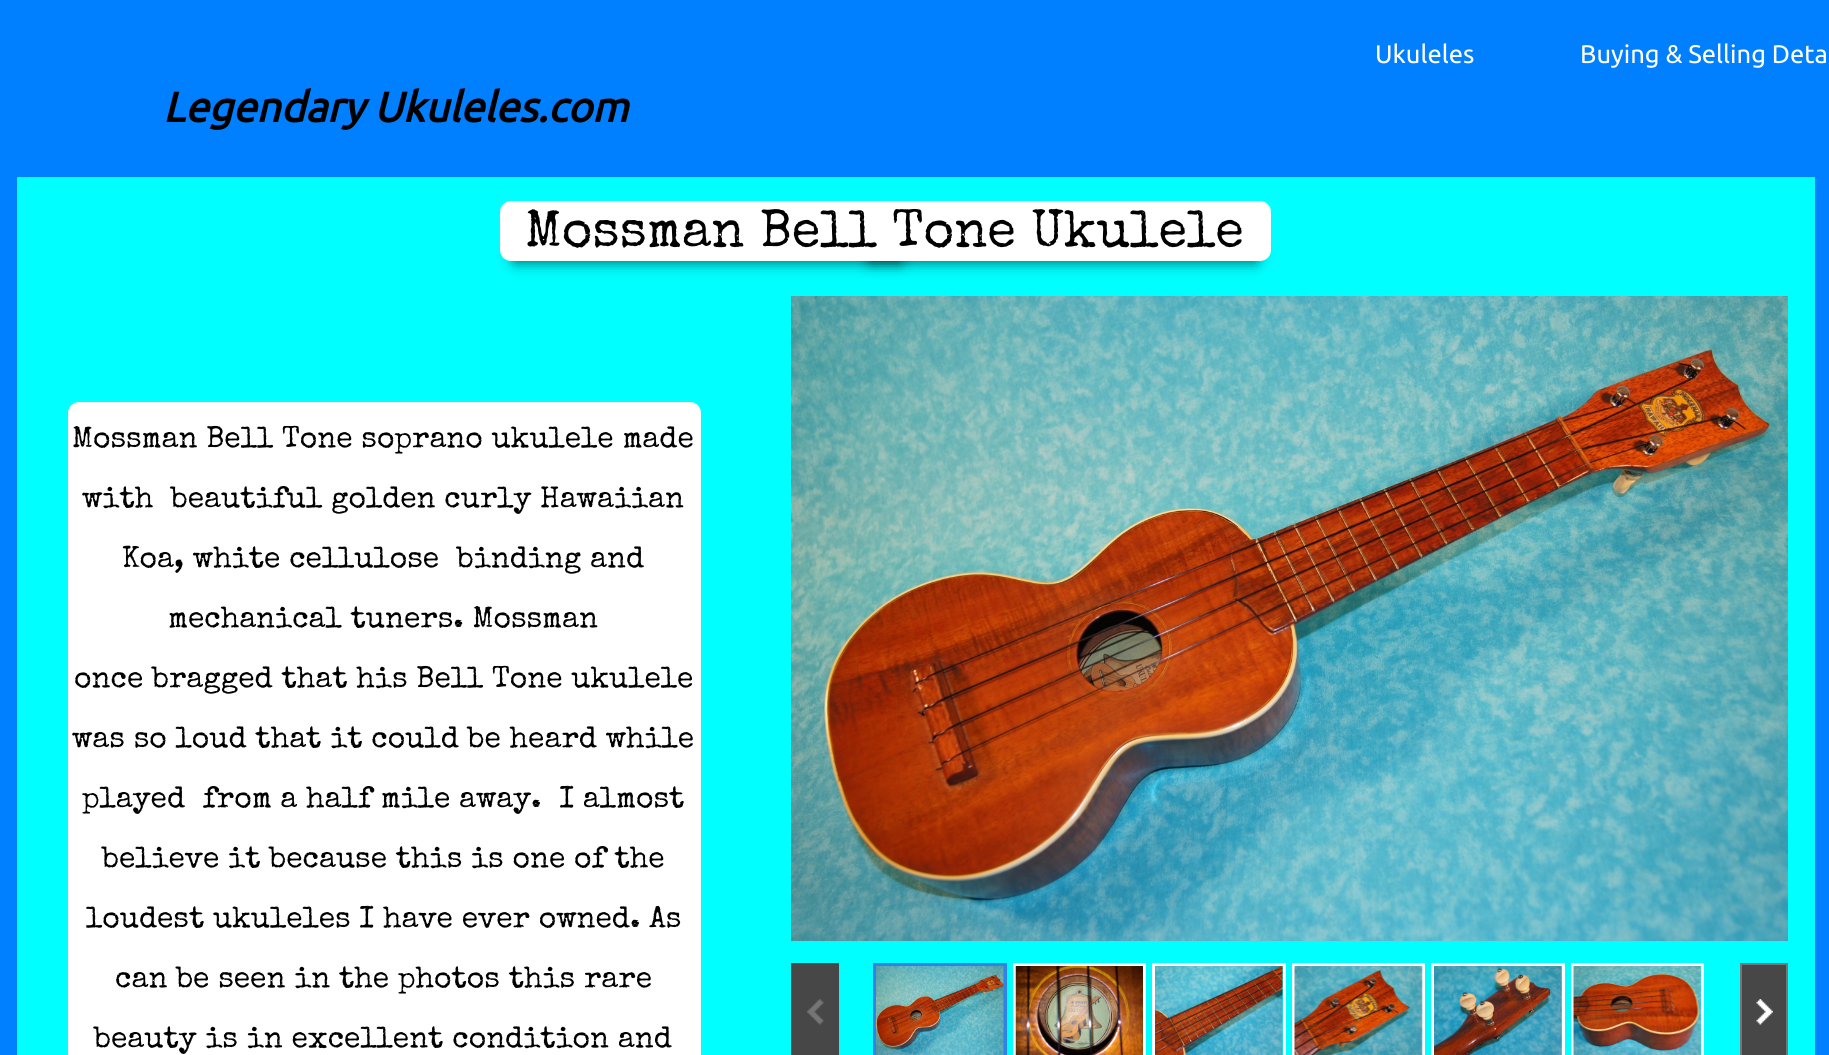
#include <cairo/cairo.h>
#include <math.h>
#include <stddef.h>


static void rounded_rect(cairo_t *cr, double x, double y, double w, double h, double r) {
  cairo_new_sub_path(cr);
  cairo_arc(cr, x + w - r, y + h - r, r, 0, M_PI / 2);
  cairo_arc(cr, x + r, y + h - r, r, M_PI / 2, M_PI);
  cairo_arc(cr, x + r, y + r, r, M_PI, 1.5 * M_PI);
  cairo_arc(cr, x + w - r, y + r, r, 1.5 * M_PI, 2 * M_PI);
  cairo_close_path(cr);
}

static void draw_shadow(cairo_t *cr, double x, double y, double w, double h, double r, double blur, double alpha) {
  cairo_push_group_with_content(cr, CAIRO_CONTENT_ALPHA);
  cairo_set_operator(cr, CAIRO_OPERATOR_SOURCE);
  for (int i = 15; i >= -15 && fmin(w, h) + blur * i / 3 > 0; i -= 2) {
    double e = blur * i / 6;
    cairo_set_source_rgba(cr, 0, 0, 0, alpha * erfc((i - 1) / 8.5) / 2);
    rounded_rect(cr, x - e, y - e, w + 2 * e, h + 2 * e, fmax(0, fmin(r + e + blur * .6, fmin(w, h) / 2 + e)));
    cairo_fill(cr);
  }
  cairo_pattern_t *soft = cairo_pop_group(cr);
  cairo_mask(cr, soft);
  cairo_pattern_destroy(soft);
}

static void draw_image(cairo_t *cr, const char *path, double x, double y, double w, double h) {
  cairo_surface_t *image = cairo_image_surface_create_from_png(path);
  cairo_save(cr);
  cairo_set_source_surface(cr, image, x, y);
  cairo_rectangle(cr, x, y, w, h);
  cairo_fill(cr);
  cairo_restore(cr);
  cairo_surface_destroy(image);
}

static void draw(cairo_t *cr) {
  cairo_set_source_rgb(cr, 0, 127 / 255.0, 1);
  cairo_paint(cr);
  cairo_set_source_rgb(cr, 0, 1, 1);
  cairo_rectangle(cr, 17, 177, 1798, 878);
  cairo_fill(cr);
  cairo_set_source_rgb(cr, 0, 0, 0);
  draw_shadow(cr, 515, 249, 385, 12, 0, 7.5, 0.7);
  draw_shadow(cr, 870, 249, 386, 12, 0, 7.5, 0.7);
  cairo_set_source_rgb(cr, 1, 1, 1);
  rounded_rect(cr, 500, 201, 771, 60, 11);
  cairo_fill(cr);
  cairo_new_path(cr);
  cairo_move_to(cr, 79, 402);
  cairo_line_to(cr, 690, 402);
  cairo_curve_to(cr, 696, 402, 701, 407, 701, 413);
  cairo_line_to(cr, 701, 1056);
  cairo_line_to(cr, 68, 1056);
  cairo_line_to(cr, 68, 413);
  cairo_curve_to(cr, 68, 407, 73, 402, 79, 402);
  cairo_close_path(cr);
  cairo_fill(cr);
  draw_image(cr, "images/1.png", 791, 296, 997, 645);
  cairo_set_source_rgb(cr, 71 / 255.0, 71 / 255.0, 71 / 255.0);
  cairo_rectangle(cr, 791, 963, 48, 92);
  cairo_fill(cr);
  draw_image(cr, "images/2.png", 807, 998, 17, 27);
  cairo_set_source_rgb(cr, 49 / 255.0, 130 / 255.0, 230 / 255.0);
  cairo_rectangle(cr, 873, 963, 134, 92);
  cairo_fill(cr);
  draw_image(cr, "images/3.png", 876, 966, 128, 89);
  cairo_rectangle(cr, 1014.5, 964.5, 130, 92);
  cairo_set_source_rgb(cr, 1, 1, 1);
  cairo_set_line_width(cr, 3);
  cairo_stroke(cr);
  draw_image(cr, "images/4.png", 1015, 966, 128, 89);
  cairo_rectangle(cr, 1153.5, 964.5, 131, 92);
  cairo_stroke(cr);
  draw_image(cr, "images/5.png", 1155, 966, 128, 89);
  cairo_rectangle(cr, 1293.5, 964.5, 130, 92);
  cairo_stroke(cr);
  draw_image(cr, "images/6.png", 1294, 966, 129, 89);
  cairo_rectangle(cr, 1432.5, 964.5, 131, 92);
  cairo_stroke(cr);
  draw_image(cr, "images/7.png", 1434, 966, 128, 89);
  cairo_rectangle(cr, 1572.5, 964.5, 130, 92);
  cairo_stroke(cr);
  draw_image(cr, "images/8.png", 1573, 966, 129, 89);
  cairo_set_source_rgb(cr, 71 / 255.0, 71 / 255.0, 71 / 255.0);
  cairo_rectangle(cr, 1742, 965, 44, 90);
  cairo_fill(cr);
  draw_image(cr, "images/9.png", 1756, 999, 17, 26);
  cairo_rectangle(cr, 1741, 964, 46, 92);
  cairo_set_source_rgb(cr, 119 / 255.0, 119 / 255.0, 119 / 255.0);
  cairo_set_line_width(cr, 2);
  cairo_stroke(cr);
  cairo_select_font_face(cr, "Ubuntu", CAIRO_FONT_SLANT_NORMAL, CAIRO_FONT_WEIGHT_NORMAL);
  cairo_set_font_size(cr, 25.5);
  cairo_set_source_rgb(cr, 1, 1, 1);
  cairo_move_to(cr, 1375, 63);
  cairo_show_text(cr, "Ukuleles");
  cairo_move_to(cr, 1580, 63);
  cairo_show_text(cr, "Buying & Selling Deta");
  cairo_select_font_face(cr, "Ubuntu", CAIRO_FONT_SLANT_ITALIC, CAIRO_FONT_WEIGHT_BOLD);
  cairo_set_font_size(cr, 42);
  cairo_set_source_rgb(cr, 0, 0, 0);
  cairo_move_to(cr, 163, 122);
  cairo_show_text(cr, "Legendary Ukuleles.com");
  cairo_select_font_face(cr, "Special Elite", CAIRO_FONT_SLANT_NORMAL, CAIRO_FONT_WEIGHT_NORMAL);
  cairo_set_font_size(cr, 52.5);
  cairo_move_to(cr, 525, 246);
  cairo_show_text(cr, "Mossman Bell Tone Ukulele");
  cairo_set_font_size(cr, 30);
  cairo_move_to(cr, 72, 447);
  cairo_show_text(cr, "Mossman Bell Tone soprano ukulele made");
  cairo_move_to(cr, 82, 507);
  cairo_show_text(cr, "with  beautiful golden curly Hawaiian");
  cairo_move_to(cr, 122, 567);
  cairo_show_text(cr, "Koa, white cellulose  binding and");
  cairo_move_to(cr, 168, 627);
  cairo_show_text(cr, "mechanical tuners. Mossman");
  cairo_move_to(cr, 74, 687);
  cairo_show_text(cr, "once bragged that his Bell Tone ukulele");
  cairo_move_to(cr, 72, 747);
  cairo_show_text(cr, "was so loud that it could be heard while");
  cairo_move_to(cr, 82, 807);
  cairo_show_text(cr, "played  from a half mile away.  I almost");
  cairo_move_to(cr, 102, 867);
  cairo_show_text(cr, "believe it because this is one of the");
  cairo_move_to(cr, 86, 927);
  cairo_show_text(cr, "loudest ukuleles I have ever owned. As");
  cairo_move_to(cr, 115, 987);
  cairo_show_text(cr, "can be seen in the photos this rare");
  cairo_move_to(cr, 94, 1047);
  cairo_show_text(cr, "beauty is in excellent condition and");
}

int main(void) {
  cairo_surface_t *surface = cairo_image_surface_create(CAIRO_FORMAT_RGB24, 1829, 1055);
  cairo_t *cr = cairo_create(surface);
  cairo_font_options_t *options = cairo_font_options_create();
  cairo_font_options_set_hint_metrics(options, CAIRO_HINT_METRICS_OFF);
  cairo_font_options_set_hint_style(options, CAIRO_HINT_STYLE_NONE);
  cairo_set_font_options(cr, options);
  cairo_set_miter_limit(cr, 4);
  draw(cr);
  cairo_surface_write_to_png(surface, "out.png");
  cairo_font_options_destroy(options);
  cairo_destroy(cr);
  cairo_surface_destroy(surface);
  return 0;
}
